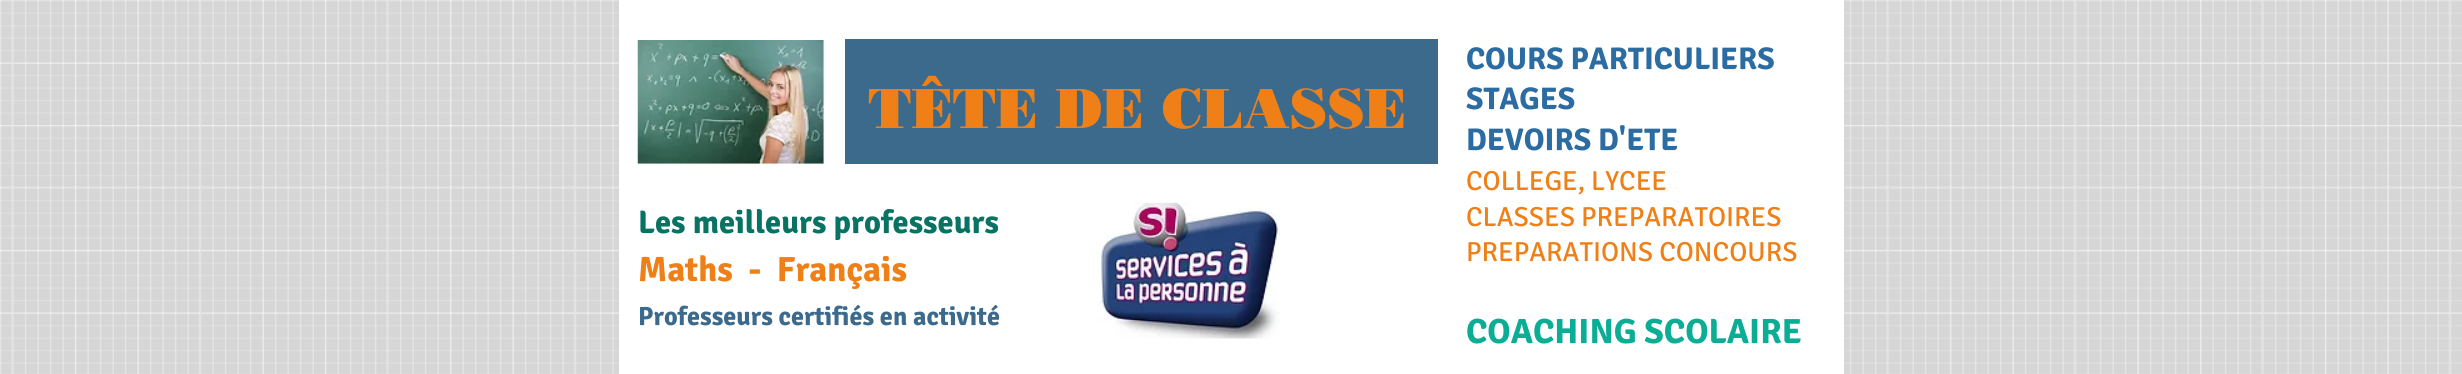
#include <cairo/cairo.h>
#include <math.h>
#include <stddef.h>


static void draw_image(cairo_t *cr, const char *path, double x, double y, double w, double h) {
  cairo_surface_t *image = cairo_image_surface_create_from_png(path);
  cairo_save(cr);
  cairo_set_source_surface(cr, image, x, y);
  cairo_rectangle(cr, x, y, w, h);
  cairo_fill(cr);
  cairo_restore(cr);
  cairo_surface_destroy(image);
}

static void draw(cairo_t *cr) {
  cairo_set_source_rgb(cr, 214 / 255.0, 214 / 255.0, 214 / 255.0);
  cairo_paint(cr);
  draw_image(cr, "images/1.png", 0, 0, 2462, 374);
  cairo_set_source_rgb(cr, 1, 1, 1);
  cairo_rectangle(cr, 619, 0, 1225, 374);
  cairo_fill(cr);
  draw_image(cr, "images/2.png", 637, 40, 187, 124);
  cairo_set_source_rgb(cr, 60 / 255.0, 106 / 255.0, 140 / 255.0);
  cairo_rectangle(cr, 845, 39, 593, 125);
  cairo_fill(cr);
  draw_image(cr, "images/3.png", 1095, 202, 185, 137);
  cairo_select_font_face(cr, "Signika", CAIRO_FONT_SLANT_NORMAL, CAIRO_FONT_WEIGHT_BOLD);
  cairo_set_font_size(cr, 31.25);
  cairo_set_source_rgb(cr, 43 / 255.0, 108 / 255.0, 163 / 255.0);
  cairo_move_to(cr, 1466, 69);
  cairo_show_text(cr, "COURS PARTICULIERS");
  cairo_move_to(cr, 1466, 109);
  cairo_show_text(cr, "STAGES");
  cairo_move_to(cr, 1466, 150);
  cairo_show_text(cr, "DEVOIRS D'ETE");
  cairo_select_font_face(cr, "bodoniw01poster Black", CAIRO_FONT_SLANT_NORMAL, CAIRO_FONT_WEIGHT_NORMAL);
  cairo_set_font_size(cr, 56.25);
  cairo_set_source_rgb(cr, 239 / 255.0, 128 / 255.0, 23 / 255.0);
  cairo_move_to(cr, 868, 128);
  cairo_show_text(cr, "TÊTE DE CLASSE");
  cairo_select_font_face(cr, "Signika", CAIRO_FONT_SLANT_NORMAL, CAIRO_FONT_WEIGHT_BOLD);
  cairo_set_font_size(cr, 32.5);
  cairo_set_source_rgb(cr, 8 / 255.0, 115 / 255.0, 99 / 255.0);
  cairo_move_to(cr, 638, 233);
  cairo_show_text(cr, "Les meilleurs professeurs");
  cairo_select_font_face(cr, "Signika", CAIRO_FONT_SLANT_NORMAL, CAIRO_FONT_WEIGHT_NORMAL);
  cairo_set_font_size(cr, 27.5);
  cairo_set_source_rgb(cr, 239 / 255.0, 128 / 255.0, 23 / 255.0);
  cairo_move_to(cr, 1466, 190);
  cairo_show_text(cr, "COLLEGE, LYCEE");
  cairo_move_to(cr, 1466, 226);
  cairo_show_text(cr, "CLASSES PREPARATOIRES");
  cairo_move_to(cr, 1466, 261);
  cairo_show_text(cr, "PREPARATIONS CONCOURS");
  cairo_select_font_face(cr, "Signika", CAIRO_FONT_SLANT_NORMAL, CAIRO_FONT_WEIGHT_BOLD);
  cairo_set_font_size(cr, 35);
  cairo_move_to(cr, 638, 281);
  cairo_show_text(cr, "Maths  -  Français");
  cairo_set_font_size(cr, 26.25);
  cairo_set_source_rgb(cr, 60 / 255.0, 106 / 255.0, 140 / 255.0);
  cairo_move_to(cr, 638, 325);
  cairo_show_text(cr, "Professeurs certifiés en activité");
  cairo_set_font_size(cr, 35);
  cairo_set_source_rgb(cr, 12 / 255.0, 173 / 255.0, 149 / 255.0);
  cairo_move_to(cr, 1466, 343);
  cairo_show_text(cr, "COACHING SCOLAIRE");
}

int main(void) {
  cairo_surface_t *surface = cairo_image_surface_create(CAIRO_FORMAT_RGB24, 2462, 374);
  cairo_t *cr = cairo_create(surface);
  cairo_font_options_t *options = cairo_font_options_create();
  cairo_font_options_set_hint_metrics(options, CAIRO_HINT_METRICS_OFF);
  cairo_font_options_set_hint_style(options, CAIRO_HINT_STYLE_NONE);
  cairo_set_font_options(cr, options);
  cairo_set_miter_limit(cr, 4);
  draw(cr);
  cairo_surface_write_to_png(surface, "out.png");
  cairo_font_options_destroy(options);
  cairo_destroy(cr);
  cairo_surface_destroy(surface);
  return 0;
}
